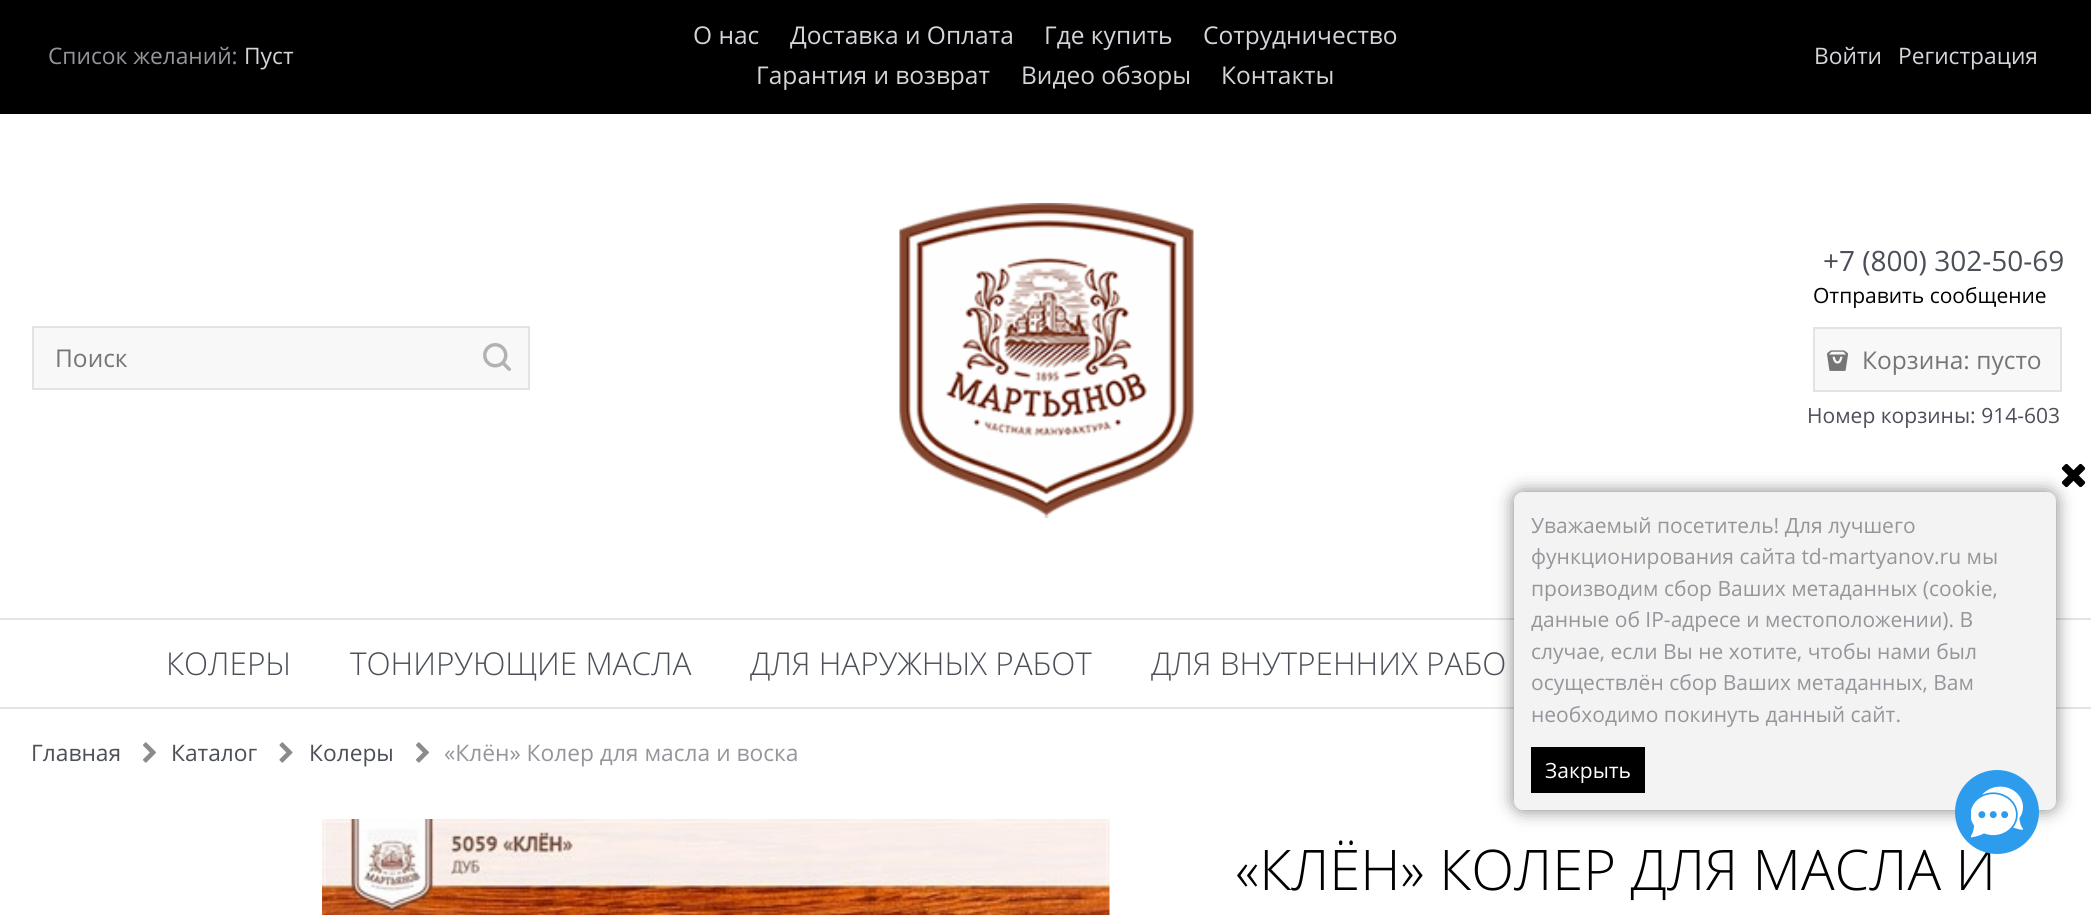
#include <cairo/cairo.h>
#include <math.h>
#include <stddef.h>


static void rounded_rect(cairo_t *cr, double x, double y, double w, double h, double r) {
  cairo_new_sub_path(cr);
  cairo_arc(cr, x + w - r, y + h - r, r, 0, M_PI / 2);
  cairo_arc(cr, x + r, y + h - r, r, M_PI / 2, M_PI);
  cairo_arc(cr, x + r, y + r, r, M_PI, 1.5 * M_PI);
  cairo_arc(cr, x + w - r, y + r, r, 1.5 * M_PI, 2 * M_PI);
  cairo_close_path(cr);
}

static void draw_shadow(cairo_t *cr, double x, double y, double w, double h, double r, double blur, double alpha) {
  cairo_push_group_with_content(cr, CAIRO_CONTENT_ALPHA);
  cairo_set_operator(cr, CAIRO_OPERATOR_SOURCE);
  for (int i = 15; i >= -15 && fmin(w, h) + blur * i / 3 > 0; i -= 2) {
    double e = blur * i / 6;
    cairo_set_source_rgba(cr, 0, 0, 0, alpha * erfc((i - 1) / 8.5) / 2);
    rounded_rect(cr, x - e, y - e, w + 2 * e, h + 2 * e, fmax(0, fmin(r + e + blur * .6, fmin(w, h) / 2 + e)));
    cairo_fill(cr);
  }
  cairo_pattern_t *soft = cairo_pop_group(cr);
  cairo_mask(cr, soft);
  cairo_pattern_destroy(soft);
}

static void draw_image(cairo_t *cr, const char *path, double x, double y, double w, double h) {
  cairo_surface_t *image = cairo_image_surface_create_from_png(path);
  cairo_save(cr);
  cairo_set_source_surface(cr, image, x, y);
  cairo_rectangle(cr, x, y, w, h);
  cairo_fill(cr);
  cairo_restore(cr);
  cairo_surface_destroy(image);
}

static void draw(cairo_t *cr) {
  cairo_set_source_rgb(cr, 1, 1, 1);
  cairo_paint(cr);
  cairo_set_source_rgb(cr, 0, 0, 0);
  cairo_rectangle(cr, 0, 0, 2091, 114);
  cairo_fill(cr);
  cairo_set_source_rgb(cr, 248 / 255.0, 248 / 255.0, 248 / 255.0);
  cairo_rectangle(cr, 33, 327, 496, 62);
  cairo_fill_preserve(cr);
  cairo_set_source_rgb(cr, 226 / 255.0, 227 / 255.0, 228 / 255.0);
  cairo_stroke(cr);
  draw_image(cr, "images/1.png", 483, 343, 28, 28);
  draw_image(cr, "images/2.png", 899, 203, 295, 315);
  cairo_set_source_rgb(cr, 248 / 255.0, 248 / 255.0, 248 / 255.0);
  cairo_rectangle(cr, 1814, 328, 247, 63);
  cairo_fill_preserve(cr);
  cairo_set_source_rgb(cr, 226 / 255.0, 227 / 255.0, 228 / 255.0);
  cairo_stroke(cr);
  draw_image(cr, "images/3.png", 1827, 350, 21, 21);
  cairo_set_source_rgb(cr, 228 / 255.0, 228 / 255.0, 228 / 255.0);
  cairo_rectangle(cr, 0, 618, 2091, 2);
  cairo_fill(cr);
  cairo_rectangle(cr, 0, 707, 2091, 2);
  cairo_fill(cr);
  draw_image(cr, "images/4.png", 143, 742, 13, 21);
  draw_image(cr, "images/5.png", 279, 742, 14, 21);
  draw_image(cr, "images/4.png", 416, 742, 13, 21);
  draw_image(cr, "images/6.png", 322, 819, 788, 96);
  cairo_set_source_rgb(cr, 0, 0, 0);
  draw_shadow(cr, 1514, 492, 542, 318, 9, 9, 0.5);
  cairo_set_source_rgb(cr, 243 / 255.0, 243 / 255.0, 243 / 255.0);
  rounded_rect(cr, 1514, 492, 542, 318, 9);
  cairo_fill(cr);
  draw_image(cr, "images/7.png", 2061, 463, 25, 25);
  cairo_set_source_rgb(cr, 0, 0, 0);
  cairo_rectangle(cr, 1531, 747, 114, 46);
  cairo_fill(cr);
  cairo_select_font_face(cr, "Open Sans", CAIRO_FONT_SLANT_NORMAL, CAIRO_FONT_WEIGHT_NORMAL);
  cairo_set_font_size(cr, 22.75);
  cairo_set_source_rgb(cr, 148 / 255.0, 150 / 255.0, 155 / 255.0);
  cairo_move_to(cr, 48, 64);
  cairo_show_text(cr, "Список желаний:");
  cairo_set_source_rgb(cr, 212 / 255.0, 213 / 255.0, 218 / 255.0);
  cairo_move_to(cr, 244, 64);
  cairo_show_text(cr, "Пуст");
  cairo_set_font_size(cr, 24.5);
  cairo_move_to(cr, 693, 44);
  cairo_show_text(cr, "О нас");
  cairo_move_to(cr, 790, 44);
  cairo_show_text(cr, "Доставка и Оплата");
  cairo_move_to(cr, 1044, 44);
  cairo_show_text(cr, "Где купить");
  cairo_move_to(cr, 1203, 44);
  cairo_show_text(cr, "Сотрудничество");
  cairo_move_to(cr, 756, 84);
  cairo_show_text(cr, "Гарантия и возврат");
  cairo_move_to(cr, 1021, 84);
  cairo_show_text(cr, "Видео обзоры");
  cairo_move_to(cr, 1221, 84);
  cairo_show_text(cr, "Контакты");
  cairo_set_font_size(cr, 22.75);
  cairo_move_to(cr, 1814, 64);
  cairo_show_text(cr, "Войти");
  cairo_move_to(cr, 1898, 64);
  cairo_show_text(cr, "Регистрация");
  cairo_set_font_size(cr, 24.5);
  cairo_set_source_rgb(cr, 117 / 255.0, 117 / 255.0, 117 / 255.0);
  cairo_move_to(cr, 55, 367);
  cairo_show_text(cr, "Поиск");
  cairo_set_font_size(cr, 28);
  cairo_set_source_rgb(cr, 75 / 255.0, 79 / 255.0, 88 / 255.0);
  cairo_move_to(cr, 1823, 271);
  cairo_show_text(cr, "+7 (800) 302-50-69");
  cairo_set_font_size(cr, 21);
  cairo_set_source_rgb(cr, 0, 0, 0);
  cairo_move_to(cr, 1813, 303);
  cairo_show_text(cr, "Отправить сообщение");
  cairo_set_font_size(cr, 24.5);
  cairo_set_source_rgb(cr, 117 / 255.0, 117 / 255.0, 117 / 255.0);
  cairo_move_to(cr, 1862, 369);
  cairo_show_text(cr, "Корзина: пусто");
  cairo_set_font_size(cr, 21);
  cairo_set_source_rgb(cr, 75 / 255.0, 79 / 255.0, 88 / 255.0);
  cairo_move_to(cr, 1807, 423);
  cairo_show_text(cr, "Номер корзины: 914-603");
  cairo_select_font_face(cr, "Open Sans Light", CAIRO_FONT_SLANT_NORMAL, CAIRO_FONT_WEIGHT_NORMAL);
  cairo_set_font_size(cr, 31.5);
  cairo_move_to(cr, 166, 675);
  cairo_show_text(cr, "КОЛЕРЫ");
  cairo_move_to(cr, 350, 675);
  cairo_show_text(cr, "ТОНИРУЮЩИЕ МАСЛА");
  cairo_move_to(cr, 750, 675);
  cairo_show_text(cr, "ДЛЯ НАРУЖНЫХ РАБОТ");
  cairo_move_to(cr, 1151, 675);
  cairo_show_text(cr, "ДЛЯ ВНУТРЕННИХ РАБО");
  cairo_select_font_face(cr, "Open Sans", CAIRO_FONT_SLANT_NORMAL, CAIRO_FONT_WEIGHT_NORMAL);
  cairo_set_font_size(cr, 22.75);
  cairo_move_to(cr, 31, 761);
  cairo_show_text(cr, "Главная");
  cairo_move_to(cr, 171, 761);
  cairo_show_text(cr, "Каталог");
  cairo_move_to(cr, 309, 761);
  cairo_show_text(cr, "Колеры");
  cairo_set_source_rgb(cr, 148 / 255.0, 150 / 255.0, 155 / 255.0);
  cairo_move_to(cr, 444, 761);
  cairo_show_text(cr, "«Клён» Колер для масла и воска");
  cairo_select_font_face(cr, "Open Sans Light", CAIRO_FONT_SLANT_NORMAL, CAIRO_FONT_WEIGHT_NORMAL);
  cairo_set_font_size(cr, 56);
  cairo_set_source_rgb(cr, 0, 0, 0);
  cairo_move_to(cr, 1235, 890);
  cairo_show_text(cr, "«КЛЁН» КОЛЕР ДЛЯ МАСЛА И");
  cairo_select_font_face(cr, "Open Sans", CAIRO_FONT_SLANT_NORMAL, CAIRO_FONT_WEIGHT_NORMAL);
  cairo_set_font_size(cr, 21);
  cairo_set_source_rgb(cr, 148 / 255.0, 150 / 255.0, 155 / 255.0);
  cairo_move_to(cr, 1531, 533);
  cairo_show_text(cr, "Уважаемый посетитель! Для лучшего");
  cairo_move_to(cr, 1531, 564);
  cairo_show_text(cr, "функционирования сайта td-martyanov.ru мы");
  cairo_move_to(cr, 1531, 596);
  cairo_show_text(cr, "производим сбор Ваших метаданных (cookie,");
  cairo_move_to(cr, 1531, 627);
  cairo_show_text(cr, "данные об IP-адресе и местоположении). В");
  cairo_move_to(cr, 1531, 659);
  cairo_show_text(cr, "случае, если Вы не хотите, чтобы нами был");
  cairo_move_to(cr, 1531, 690);
  cairo_show_text(cr, "осуществлён сбор Ваших метаданных, Вам");
  cairo_move_to(cr, 1531, 722);
  cairo_show_text(cr, "необходимо покинуть данный сайт.");
  cairo_set_source_rgb(cr, 1, 1, 1);
  cairo_move_to(cr, 1545, 778);
  cairo_show_text(cr, "Закрыть");
  cairo_set_source_rgb(cr, 45 / 255.0, 156 / 255.0, 237 / 255.0);
  cairo_new_path(cr);
  cairo_arc(cr, 1997, 812, 42, 0, 2 * M_PI);
  cairo_fill(cr);
  draw_image(cr, "images/8.png", 1971, 786, 52, 52);
}

int main(void) {
  cairo_surface_t *surface = cairo_image_surface_create(CAIRO_FORMAT_RGB24, 2091, 915);
  cairo_t *cr = cairo_create(surface);
  cairo_font_options_t *options = cairo_font_options_create();
  cairo_font_options_set_hint_metrics(options, CAIRO_HINT_METRICS_OFF);
  cairo_font_options_set_hint_style(options, CAIRO_HINT_STYLE_NONE);
  cairo_set_font_options(cr, options);
  cairo_set_miter_limit(cr, 4);
  draw(cr);
  cairo_surface_write_to_png(surface, "out.png");
  cairo_font_options_destroy(options);
  cairo_destroy(cr);
  cairo_surface_destroy(surface);
  return 0;
}
